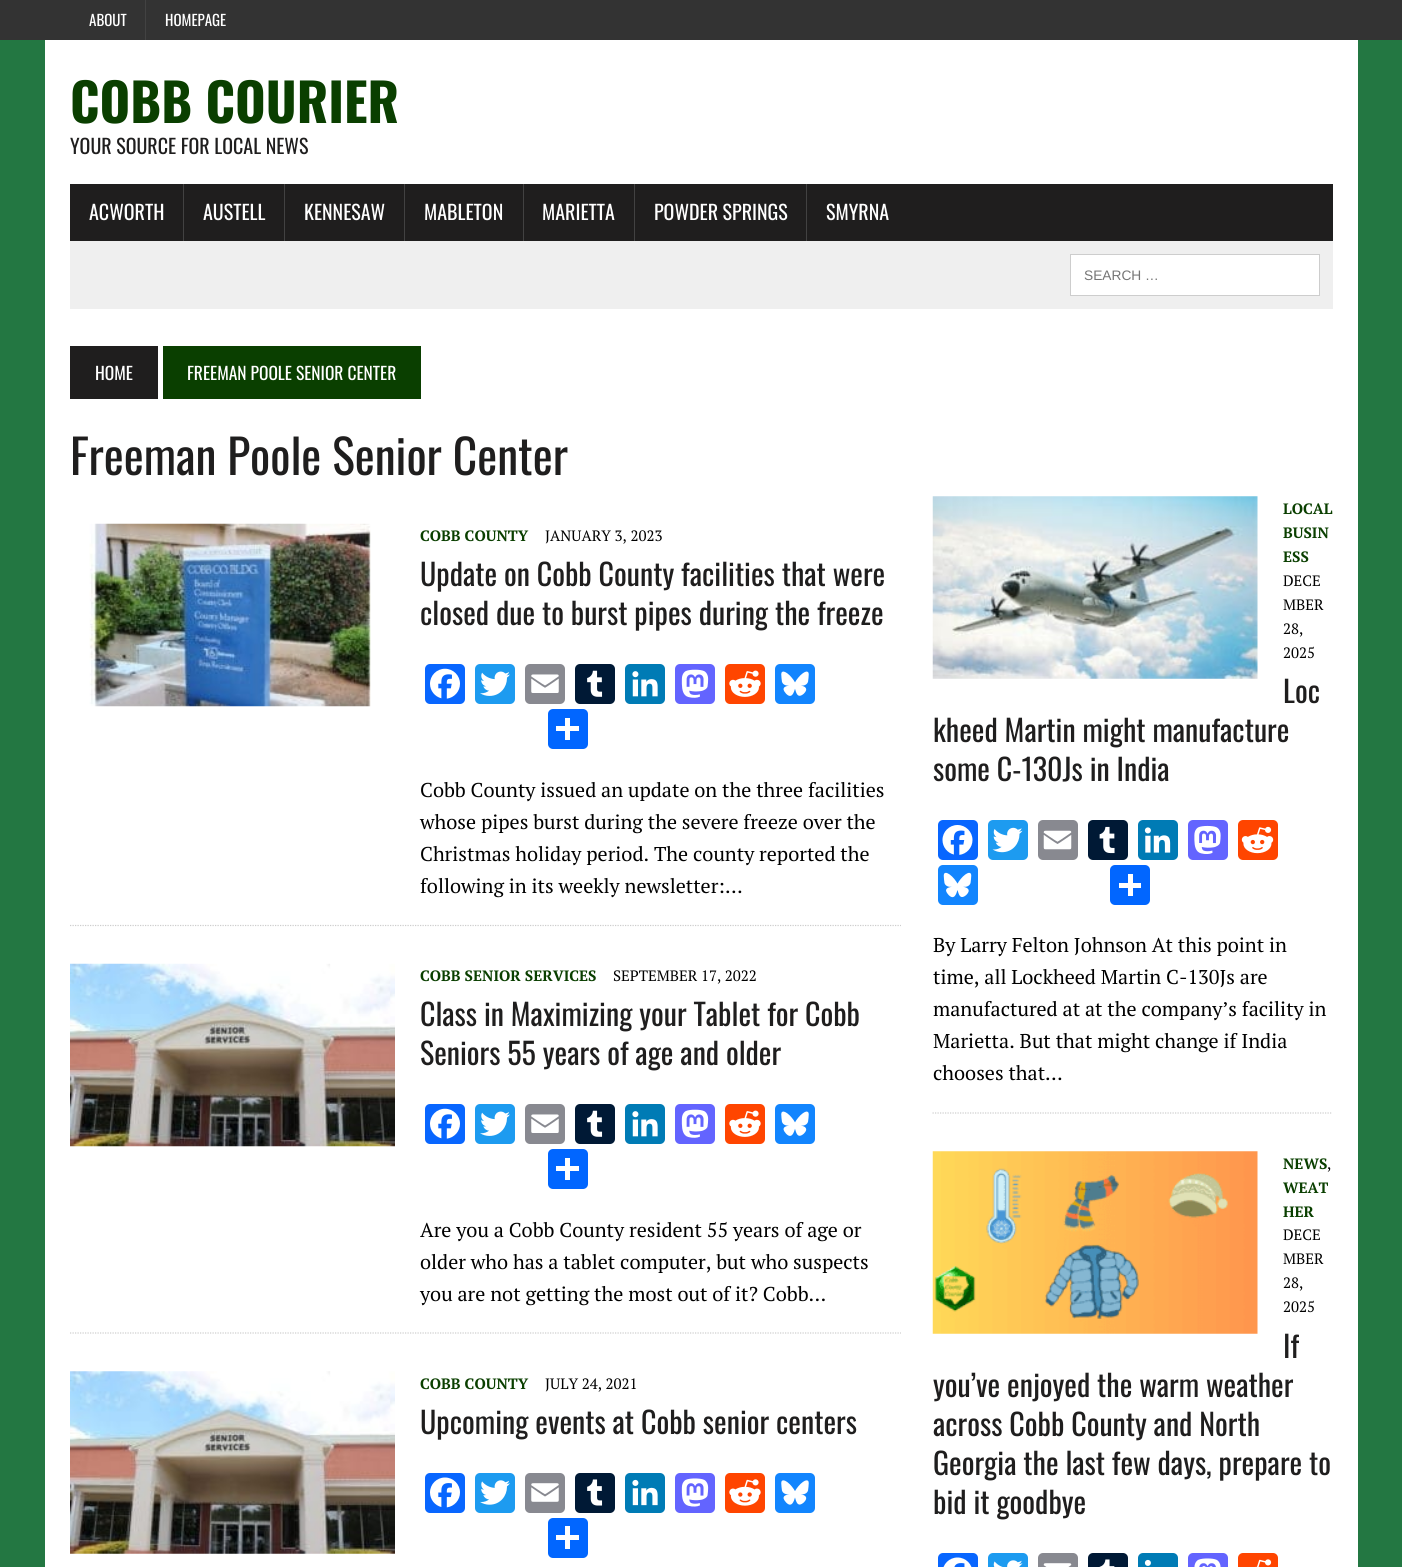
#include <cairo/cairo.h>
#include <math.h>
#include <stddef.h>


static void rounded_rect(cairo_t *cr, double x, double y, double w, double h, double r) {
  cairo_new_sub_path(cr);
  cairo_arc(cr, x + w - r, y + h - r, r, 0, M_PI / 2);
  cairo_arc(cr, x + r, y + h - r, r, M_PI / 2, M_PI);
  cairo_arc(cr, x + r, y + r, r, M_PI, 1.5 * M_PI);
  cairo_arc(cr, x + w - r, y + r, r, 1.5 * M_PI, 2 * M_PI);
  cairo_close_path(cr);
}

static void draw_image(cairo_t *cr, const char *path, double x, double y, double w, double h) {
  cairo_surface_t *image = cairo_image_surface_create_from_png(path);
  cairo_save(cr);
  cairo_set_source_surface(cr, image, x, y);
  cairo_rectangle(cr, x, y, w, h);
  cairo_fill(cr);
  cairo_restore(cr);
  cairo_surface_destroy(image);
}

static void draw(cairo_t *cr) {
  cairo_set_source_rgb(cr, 35 / 255.0, 119 / 255.0, 66 / 255.0);
  cairo_paint(cr);
  cairo_set_source_rgb(cr, 51 / 255.0, 51 / 255.0, 51 / 255.0);
  cairo_rectangle(cr, 0, 0, 1402, 40);
  cairo_fill(cr);
  cairo_set_source_rgb(cr, 66 / 255.0, 66 / 255.0, 66 / 255.0);
  cairo_rectangle(cr, 145, 0, 1, 40);
  cairo_fill(cr);
  cairo_set_source_rgb(cr, 1, 1, 1);
  cairo_rectangle(cr, 45, 40, 1313, 1527);
  cairo_fill(cr);
  cairo_set_source_rgb(cr, 31 / 255.0, 30 / 255.0, 30 / 255.0);
  cairo_rectangle(cr, 70, 184, 1263, 57);
  cairo_fill(cr);
  cairo_set_source_rgb(cr, 66 / 255.0, 66 / 255.0, 66 / 255.0);
  cairo_rectangle(cr, 183, 184, 1, 57);
  cairo_fill(cr);
  cairo_rectangle(cr, 284, 184, 1, 57);
  cairo_fill(cr);
  cairo_rectangle(cr, 404, 184, 1, 57);
  cairo_fill(cr);
  cairo_rectangle(cr, 523, 184, 1, 57);
  cairo_fill(cr);
  cairo_rectangle(cr, 634, 184, 1, 57);
  cairo_fill(cr);
  cairo_rectangle(cr, 806, 184, 1, 57);
  cairo_fill(cr);
  cairo_set_source_rgb(cr, 239 / 255.0, 239 / 255.0, 239 / 255.0);
  cairo_rectangle(cr, 70, 241, 1263, 68);
  cairo_fill(cr);
  cairo_set_source_rgb(cr, 1, 1, 1);
  cairo_rectangle(cr, 1070.5, 254.5, 249, 41);
  cairo_fill_preserve(cr);
  cairo_set_source_rgb(cr, 205 / 255.0, 205 / 255.0, 205 / 255.0);
  cairo_set_line_width(cr, 1);
  cairo_stroke(cr);
  cairo_set_source_rgb(cr, 31 / 255.0, 30 / 255.0, 30 / 255.0);
  cairo_rectangle(cr, 70, 346, 88, 53);
  cairo_fill(cr);
  cairo_set_source_rgb(cr, 10 / 255.0, 63 / 255.0, 0);
  cairo_rectangle(cr, 163, 346, 258, 53);
  cairo_fill(cr);
  draw_image(cr, "images/1.png", 89, 523, 282, 184);
  cairo_set_source_rgb(cr, 8 / 255.0, 102 / 255.0, 1);
  rounded_rect(cr, 425, 664, 40, 40, 5);
  cairo_fill(cr);
  draw_image(cr, "images/2.png", 430, 668, 30, 31);
  cairo_set_source_rgb(cr, 29 / 255.0, 155 / 255.0, 240 / 255.0);
  rounded_rect(cr, 475, 664, 40, 40, 5);
  cairo_fill(cr);
  draw_image(cr, "images/3.png", 480, 671, 30, 25);
  cairo_set_source_rgb(cr, 136 / 255.0, 137 / 255.0, 144 / 255.0);
  rounded_rect(cr, 525, 664, 40, 40, 5);
  cairo_fill(cr);
  draw_image(cr, "images/4.png", 531, 674, 28, 19);
  cairo_set_source_rgb(cr, 0, 25 / 255.0, 53 / 255.0);
  rounded_rect(cr, 575, 664, 40, 40, 5);
  cairo_fill(cr);
  draw_image(cr, "images/5.png", 587, 670, 16, 27);
  cairo_set_source_rgb(cr, 0, 123 / 255.0, 181 / 255.0);
  rounded_rect(cr, 625, 664, 40, 40, 5);
  cairo_fill(cr);
  draw_image(cr, "images/6.png", 632, 671, 26, 26);
  cairo_set_source_rgb(cr, 99 / 255.0, 100 / 255.0, 1);
  rounded_rect(cr, 675, 664, 40, 40, 5);
  cairo_fill(cr);
  draw_image(cr, "images/7.png", 681, 669, 28, 29);
  cairo_set_source_rgb(cr, 1, 69 / 255.0, 0);
  rounded_rect(cr, 725, 664, 40, 40, 5);
  cairo_fill(cr);
  draw_image(cr, "images/8.png", 729, 670, 32, 27);
  cairo_set_source_rgb(cr, 18 / 255.0, 133 / 255.0, 254 / 255.0);
  rounded_rect(cr, 775, 664, 40, 40, 5);
  cairo_fill(cr);
  draw_image(cr, "images/9.png", 781, 671, 28, 25);
  cairo_set_source_rgb(cr, 1 / 255.0, 102 / 255.0, 1);
  rounded_rect(cr, 548, 709, 40, 40, 5);
  cairo_fill(cr);
  cairo_set_source_rgb(cr, 1, 1, 1);
  cairo_rectangle(cr, 565, 718, 5, 22);
  cairo_fill(cr);
  cairo_rectangle(cr, 556, 726, 23, 5);
  cairo_fill(cr);
  cairo_new_path(cr);
  cairo_move_to(cr, 70, 925.5);
  cairo_line_to(cr, 901, 925.5);
  cairo_set_source_rgb(cr, 205 / 255.0, 205 / 255.0, 205 / 255.0);
  cairo_set_line_width(cr, 1.2);
  cairo_set_dash(cr, (double[]){1.25, 1.25}, 2, 0);
  cairo_stroke(cr);
  draw_image(cr, "images/10.png", 70, 963, 325, 184);
  cairo_set_source_rgb(cr, 8 / 255.0, 102 / 255.0, 1);
  rounded_rect(cr, 425, 1104, 40, 40, 5);
  cairo_fill(cr);
  draw_image(cr, "images/2.png", 430, 1108, 30, 31);
  cairo_set_source_rgb(cr, 29 / 255.0, 155 / 255.0, 240 / 255.0);
  rounded_rect(cr, 475, 1104, 40, 40, 5);
  cairo_fill(cr);
  draw_image(cr, "images/3.png", 480, 1111, 30, 25);
  cairo_set_source_rgb(cr, 136 / 255.0, 137 / 255.0, 144 / 255.0);
  rounded_rect(cr, 525, 1104, 40, 40, 5);
  cairo_fill(cr);
  draw_image(cr, "images/4.png", 531, 1114, 28, 19);
  cairo_set_source_rgb(cr, 0, 25 / 255.0, 53 / 255.0);
  rounded_rect(cr, 575, 1104, 40, 40, 5);
  cairo_fill(cr);
  draw_image(cr, "images/5.png", 587, 1110, 16, 27);
  cairo_set_source_rgb(cr, 0, 123 / 255.0, 181 / 255.0);
  rounded_rect(cr, 625, 1104, 40, 40, 5);
  cairo_fill(cr);
  draw_image(cr, "images/6.png", 632, 1111, 26, 26);
  cairo_set_source_rgb(cr, 99 / 255.0, 100 / 255.0, 1);
  rounded_rect(cr, 675, 1104, 40, 40, 5);
  cairo_fill(cr);
  draw_image(cr, "images/7.png", 681, 1109, 28, 29);
  cairo_set_source_rgb(cr, 1, 69 / 255.0, 0);
  rounded_rect(cr, 725, 1104, 40, 40, 5);
  cairo_fill(cr);
  draw_image(cr, "images/8.png", 729, 1110, 32, 27);
  cairo_set_source_rgb(cr, 18 / 255.0, 133 / 255.0, 254 / 255.0);
  rounded_rect(cr, 775, 1104, 40, 40, 5);
  cairo_fill(cr);
  draw_image(cr, "images/9.png", 781, 1111, 28, 25);
  cairo_set_source_rgb(cr, 1 / 255.0, 102 / 255.0, 1);
  rounded_rect(cr, 548, 1149, 40, 40, 5);
  cairo_fill(cr);
  cairo_set_source_rgb(cr, 1, 1, 1);
  cairo_rectangle(cr, 565, 1158, 5, 22);
  cairo_fill(cr);
  cairo_rectangle(cr, 556, 1166, 23, 5);
  cairo_fill(cr);
  cairo_new_path(cr);
  cairo_move_to(cr, 70, 1333);
  cairo_line_to(cr, 901, 1333);
  cairo_set_source_rgb(cr, 205 / 255.0, 205 / 255.0, 205 / 255.0);
  cairo_stroke(cr);
  draw_image(cr, "images/11.png", 70, 1371, 325, 183);
  cairo_set_source_rgb(cr, 8 / 255.0, 102 / 255.0, 1);
  rounded_rect(cr, 425, 1473, 40, 40, 5);
  cairo_fill(cr);
  draw_image(cr, "images/12.png", 430, 1477, 30, 31);
  cairo_set_source_rgb(cr, 29 / 255.0, 155 / 255.0, 240 / 255.0);
  rounded_rect(cr, 475, 1473, 40, 40, 5);
  cairo_fill(cr);
  draw_image(cr, "images/13.png", 480, 1480, 30, 25);
  cairo_set_source_rgb(cr, 136 / 255.0, 137 / 255.0, 144 / 255.0);
  rounded_rect(cr, 525, 1473, 40, 40, 5);
  cairo_fill(cr);
  draw_image(cr, "images/14.png", 531, 1483, 28, 19);
  cairo_set_source_rgb(cr, 0, 25 / 255.0, 53 / 255.0);
  rounded_rect(cr, 575, 1473, 40, 40, 5);
  cairo_fill(cr);
  draw_image(cr, "images/15.png", 587, 1479, 16, 27);
  cairo_set_source_rgb(cr, 0, 123 / 255.0, 181 / 255.0);
  rounded_rect(cr, 625, 1473, 40, 40, 5);
  cairo_fill(cr);
  draw_image(cr, "images/16.png", 632, 1479, 26, 27);
  cairo_set_source_rgb(cr, 99 / 255.0, 100 / 255.0, 1);
  rounded_rect(cr, 675, 1473, 40, 40, 5);
  cairo_fill(cr);
  draw_image(cr, "images/17.png", 681, 1478, 28, 29);
  cairo_set_source_rgb(cr, 1, 69 / 255.0, 0);
  rounded_rect(cr, 725, 1473, 40, 40, 5);
  cairo_fill(cr);
  draw_image(cr, "images/18.png", 729, 1479, 32, 27);
  cairo_set_source_rgb(cr, 18 / 255.0, 133 / 255.0, 254 / 255.0);
  rounded_rect(cr, 775, 1473, 40, 40, 5);
  cairo_fill(cr);
  draw_image(cr, "images/19.png", 781, 1480, 28, 25);
  cairo_set_source_rgb(cr, 1 / 255.0, 102 / 255.0, 1);
  rounded_rect(cr, 548, 1518, 40, 40, 5);
  cairo_fill(cr);
  cairo_set_source_rgb(cr, 1, 1, 1);
  cairo_rectangle(cr, 565, 1526, 5, 23);
  cairo_fill(cr);
  cairo_rectangle(cr, 556, 1535, 23, 5);
  cairo_fill(cr);
  draw_image(cr, "images/20.png", 932, 496, 326, 183);
  cairo_set_source_rgb(cr, 8 / 255.0, 102 / 255.0, 1);
  rounded_rect(cr, 938, 820, 40, 40, 5);
  cairo_fill(cr);
  draw_image(cr, "images/21.png", 942, 825, 31, 30);
  cairo_set_source_rgb(cr, 29 / 255.0, 155 / 255.0, 240 / 255.0);
  rounded_rect(cr, 988, 820, 40, 40, 5);
  cairo_fill(cr);
  draw_image(cr, "images/22.png", 992, 827, 31, 26);
  cairo_set_source_rgb(cr, 136 / 255.0, 137 / 255.0, 144 / 255.0);
  rounded_rect(cr, 1038, 820, 40, 40, 5);
  cairo_fill(cr);
  draw_image(cr, "images/23.png", 1043, 830, 29, 20);
  cairo_set_source_rgb(cr, 0, 25 / 255.0, 53 / 255.0);
  rounded_rect(cr, 1088, 820, 40, 40, 5);
  cairo_fill(cr);
  draw_image(cr, "images/24.png", 1099, 826, 16, 28);
  cairo_set_source_rgb(cr, 0, 123 / 255.0, 181 / 255.0);
  rounded_rect(cr, 1138, 820, 40, 40, 5);
  cairo_fill(cr);
  draw_image(cr, "images/25.png", 1144, 827, 27, 26);
  cairo_set_source_rgb(cr, 99 / 255.0, 100 / 255.0, 1);
  rounded_rect(cr, 1188, 820, 40, 40, 5);
  cairo_fill(cr);
  draw_image(cr, "images/26.png", 1194, 825, 27, 29);
  cairo_set_source_rgb(cr, 1, 69 / 255.0, 0);
  rounded_rect(cr, 1238, 820, 40, 40, 5);
  cairo_fill(cr);
  draw_image(cr, "images/27.png", 1241, 826, 33, 28);
  cairo_set_source_rgb(cr, 18 / 255.0, 133 / 255.0, 254 / 255.0);
  rounded_rect(cr, 938, 865, 40, 40, 5);
  cairo_fill(cr);
  draw_image(cr, "images/28.png", 943, 872, 29, 26);
  cairo_set_source_rgb(cr, 1 / 255.0, 102 / 255.0, 1);
  rounded_rect(cr, 1110, 865, 40, 40, 5);
  cairo_fill(cr);
  cairo_set_source_rgb(cr, 1, 1, 1);
  cairo_rectangle(cr, 1128, 874, 5, 22);
  cairo_fill(cr);
  cairo_rectangle(cr, 1119, 883, 22, 5);
  cairo_fill(cr);
  cairo_new_path(cr);
  cairo_move_to(cr, 932.5, 1113);
  cairo_line_to(cr, 1332.5, 1113);
  cairo_set_source_rgb(cr, 205 / 255.0, 205 / 255.0, 205 / 255.0);
  cairo_stroke(cr);
  draw_image(cr, "images/29.png", 932, 1151, 326, 183);
  cairo_set_source_rgb(cr, 8 / 255.0, 102 / 255.0, 1);
  rounded_rect(cr, 938, 1553, 40, 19, 5);
  cairo_fill(cr);
  draw_image(cr, "images/30.png", 943, 1557, 29, 10);
  cairo_set_source_rgb(cr, 29 / 255.0, 155 / 255.0, 240 / 255.0);
  rounded_rect(cr, 988, 1553, 40, 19, 5);
  cairo_fill(cr);
  draw_image(cr, "images/31.png", 993, 1560, 30, 7);
  cairo_set_source_rgb(cr, 136 / 255.0, 137 / 255.0, 144 / 255.0);
  rounded_rect(cr, 1038, 1553, 40, 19, 5);
  cairo_fill(cr);
  draw_image(cr, "images/32.png", 1043, 1563, 29, 4);
  cairo_set_source_rgb(cr, 0, 25 / 255.0, 53 / 255.0);
  rounded_rect(cr, 1088, 1553, 40, 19, 5);
  cairo_fill(cr);
  draw_image(cr, "images/33.png", 1099, 1559, 16, 8);
  cairo_set_source_rgb(cr, 0, 123 / 255.0, 181 / 255.0);
  rounded_rect(cr, 1138, 1553, 40, 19, 5);
  cairo_fill(cr);
  draw_image(cr, "images/34.png", 1144, 1559, 7, 7);
  cairo_set_source_rgb(cr, 99 / 255.0, 100 / 255.0, 1);
  rounded_rect(cr, 1188, 1553, 40, 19, 5);
  cairo_fill(cr);
  draw_image(cr, "images/35.png", 1194, 1558, 27, 9);
  cairo_set_source_rgb(cr, 1, 69 / 255.0, 0);
  rounded_rect(cr, 1238, 1553, 40, 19, 5);
  cairo_fill(cr);
  draw_image(cr, "images/36.png", 1255, 1559, 17, 8);
  cairo_select_font_face(cr, "Oswald", CAIRO_FONT_SLANT_NORMAL, CAIRO_FONT_WEIGHT_NORMAL);
  cairo_set_font_size(cr, 15);
  cairo_set_source_rgb(cr, 1, 1, 1);
  cairo_move_to(cr, 89, 26);
  cairo_show_text(cr, "ABOUT");
  cairo_move_to(cr, 165, 26);
  cairo_show_text(cr, "HOMEPAGE");
  cairo_select_font_face(cr, "Oswald", CAIRO_FONT_SLANT_NORMAL, CAIRO_FONT_WEIGHT_BOLD);
  cairo_set_font_size(cr, 52.5);
  cairo_set_source_rgb(cr, 10 / 255.0, 63 / 255.0, 0);
  cairo_move_to(cr, 70, 123);
  cairo_show_text(cr, "COBB COURIER");
  cairo_select_font_face(cr, "Oswald", CAIRO_FONT_SLANT_NORMAL, CAIRO_FONT_WEIGHT_NORMAL);
  cairo_set_font_size(cr, 20);
  cairo_set_source_rgb(cr, 31 / 255.0, 30 / 255.0, 30 / 255.0);
  cairo_move_to(cr, 70, 154);
  cairo_show_text(cr, "YOUR SOURCE FOR LOCAL NEWS");
  cairo_set_source_rgb(cr, 1, 1, 1);
  cairo_move_to(cr, 89, 220);
  cairo_show_text(cr, "ACWORTH");
  cairo_move_to(cr, 203, 220);
  cairo_show_text(cr, "AUSTELL");
  cairo_move_to(cr, 304, 220);
  cairo_show_text(cr, "KENNESAW");
  cairo_move_to(cr, 424, 220);
  cairo_show_text(cr, "MABLETON");
  cairo_move_to(cr, 542, 220);
  cairo_show_text(cr, "MARIETTA");
  cairo_move_to(cr, 654, 220);
  cairo_show_text(cr, "POWDER SPRINGS");
  cairo_move_to(cr, 826, 220);
  cairo_show_text(cr, "SMYRNA");
  cairo_select_font_face(cr, "Liberation Sans", CAIRO_FONT_SLANT_NORMAL, CAIRO_FONT_WEIGHT_NORMAL);
  cairo_set_font_size(cr, 13.75);
  cairo_set_source_rgb(cr, 117 / 255.0, 117 / 255.0, 117 / 255.0);
  cairo_move_to(cr, 1084, 280);
  cairo_show_text(cr, "SEARCH …");
  cairo_select_font_face(cr, "Oswald", CAIRO_FONT_SLANT_NORMAL, CAIRO_FONT_WEIGHT_NORMAL);
  cairo_set_font_size(cr, 17.5);
  cairo_set_source_rgb(cr, 1, 1, 1);
  cairo_move_to(cr, 95, 380);
  cairo_show_text(cr, "HOME");
  cairo_move_to(cr, 187, 380);
  cairo_show_text(cr, "FREEMAN POOLE SENIOR CENTER");
  cairo_set_font_size(cr, 47.5);
  cairo_set_source_rgb(cr, 31 / 255.0, 30 / 255.0, 30 / 255.0);
  cairo_move_to(cr, 70, 475);
  cairo_show_text(cr, "Freeman Poole Senior Center");
  cairo_select_font_face(cr, "PT Serif", CAIRO_FONT_SLANT_NORMAL, CAIRO_FONT_WEIGHT_BOLD);
  cairo_set_font_size(cr, 15);
  cairo_set_source_rgb(cr, 10 / 255.0, 63 / 255.0, 0);
  cairo_move_to(cr, 420, 541);
  cairo_show_text(cr, "COBB COUNTY");
  cairo_select_font_face(cr, "PT Serif", CAIRO_FONT_SLANT_NORMAL, CAIRO_FONT_WEIGHT_NORMAL);
  cairo_set_source_rgb(cr, 0, 0, 0);
  cairo_move_to(cr, 545, 541);
  cairo_show_text(cr, "JANUARY 3, 2023");
  cairo_select_font_face(cr, "Oswald", CAIRO_FONT_SLANT_NORMAL, CAIRO_FONT_WEIGHT_NORMAL);
  cairo_set_font_size(cr, 30);
  cairo_set_source_rgb(cr, 31 / 255.0, 30 / 255.0, 30 / 255.0);
  cairo_move_to(cr, 420, 586);
  cairo_show_text(cr, "Update on Cobb County facilities that were");
  cairo_move_to(cr, 420, 625);
  cairo_show_text(cr, "closed due to burst pipes during the freeze");
  cairo_select_font_face(cr, "PT Serif", CAIRO_FONT_SLANT_NORMAL, CAIRO_FONT_WEIGHT_NORMAL);
  cairo_set_font_size(cr, 20);
  cairo_set_source_rgb(cr, 0, 0, 0);
  cairo_move_to(cr, 420, 797);
  cairo_show_text(cr, "Cobb County issued an update on the three facilities");
  cairo_move_to(cr, 420, 829);
  cairo_show_text(cr, "whose pipes burst during the severe freeze over the");
  cairo_move_to(cr, 420, 861);
  cairo_show_text(cr, "Christmas holiday period. The county reported the");
  cairo_move_to(cr, 420, 893);
  cairo_show_text(cr, "following in its weekly newsletter:…");
  cairo_select_font_face(cr, "PT Serif", CAIRO_FONT_SLANT_NORMAL, CAIRO_FONT_WEIGHT_BOLD);
  cairo_set_font_size(cr, 15);
  cairo_set_source_rgb(cr, 10 / 255.0, 63 / 255.0, 0);
  cairo_move_to(cr, 420, 981);
  cairo_show_text(cr, "COBB SENIOR SERVICES");
  cairo_select_font_face(cr, "PT Serif", CAIRO_FONT_SLANT_NORMAL, CAIRO_FONT_WEIGHT_NORMAL);
  cairo_set_source_rgb(cr, 0, 0, 0);
  cairo_move_to(cr, 613, 981);
  cairo_show_text(cr, "SEPTEMBER 17, 2022");
  cairo_select_font_face(cr, "Oswald", CAIRO_FONT_SLANT_NORMAL, CAIRO_FONT_WEIGHT_NORMAL);
  cairo_set_font_size(cr, 30);
  cairo_set_source_rgb(cr, 31 / 255.0, 30 / 255.0, 30 / 255.0);
  cairo_move_to(cr, 420, 1026);
  cairo_show_text(cr, "Class in Maximizing your Tablet for Cobb");
  cairo_move_to(cr, 420, 1065);
  cairo_show_text(cr, "Seniors 55 years of age and older");
  cairo_select_font_face(cr, "PT Serif", CAIRO_FONT_SLANT_NORMAL, CAIRO_FONT_WEIGHT_NORMAL);
  cairo_set_font_size(cr, 20);
  cairo_set_source_rgb(cr, 0, 0, 0);
  cairo_move_to(cr, 420, 1237);
  cairo_show_text(cr, "Are you a Cobb County resident 55 years of age or");
  cairo_move_to(cr, 420, 1269);
  cairo_show_text(cr, "older who has a tablet computer, but who suspects");
  cairo_move_to(cr, 420, 1301);
  cairo_show_text(cr, "you are not getting the most out of it? Cobb…");
  cairo_select_font_face(cr, "PT Serif", CAIRO_FONT_SLANT_NORMAL, CAIRO_FONT_WEIGHT_BOLD);
  cairo_set_font_size(cr, 15);
  cairo_set_source_rgb(cr, 10 / 255.0, 63 / 255.0, 0);
  cairo_move_to(cr, 420, 1389);
  cairo_show_text(cr, "COBB COUNTY");
  cairo_select_font_face(cr, "PT Serif", CAIRO_FONT_SLANT_NORMAL, CAIRO_FONT_WEIGHT_NORMAL);
  cairo_set_source_rgb(cr, 0, 0, 0);
  cairo_move_to(cr, 545, 1389);
  cairo_show_text(cr, "JULY 24, 2021");
  cairo_select_font_face(cr, "Oswald", CAIRO_FONT_SLANT_NORMAL, CAIRO_FONT_WEIGHT_NORMAL);
  cairo_set_font_size(cr, 30);
  cairo_set_source_rgb(cr, 31 / 255.0, 30 / 255.0, 30 / 255.0);
  cairo_move_to(cr, 420, 1434);
  cairo_show_text(cr, "Upcoming events at Cobb senior centers");
  cairo_select_font_face(cr, "PT Serif", CAIRO_FONT_SLANT_NORMAL, CAIRO_FONT_WEIGHT_BOLD);
  cairo_set_font_size(cr, 15);
  cairo_set_source_rgb(cr, 10 / 255.0, 63 / 255.0, 0);
  cairo_move_to(cr, 1283, 514);
  cairo_show_text(cr, "LOCAL");
  cairo_move_to(cr, 1283, 538);
  cairo_show_text(cr, "BUSIN");
  cairo_move_to(cr, 1283, 562);
  cairo_show_text(cr, "ESS");
  cairo_select_font_face(cr, "PT Serif", CAIRO_FONT_SLANT_NORMAL, CAIRO_FONT_WEIGHT_NORMAL);
  cairo_set_source_rgb(cr, 0, 0, 0);
  cairo_move_to(cr, 1283, 586);
  cairo_show_text(cr, "DECE");
  cairo_move_to(cr, 1283, 610);
  cairo_show_text(cr, "MBER");
  cairo_move_to(cr, 1283, 634);
  cairo_show_text(cr, "28,");
  cairo_move_to(cr, 1283, 658);
  cairo_show_text(cr, "2025");
  cairo_select_font_face(cr, "Oswald", CAIRO_FONT_SLANT_NORMAL, CAIRO_FONT_WEIGHT_NORMAL);
  cairo_set_font_size(cr, 30);
  cairo_set_source_rgb(cr, 31 / 255.0, 30 / 255.0, 30 / 255.0);
  cairo_move_to(cr, 1283, 703);
  cairo_show_text(cr, "Loc");
  cairo_move_to(cr, 933, 742);
  cairo_show_text(cr, "kheed Martin might manufacture");
  cairo_move_to(cr, 933, 781);
  cairo_show_text(cr, "some C-130Js in India");
  cairo_select_font_face(cr, "PT Serif", CAIRO_FONT_SLANT_NORMAL, CAIRO_FONT_WEIGHT_NORMAL);
  cairo_set_font_size(cr, 20);
  cairo_set_source_rgb(cr, 0, 0, 0);
  cairo_move_to(cr, 933, 952);
  cairo_show_text(cr, "By Larry Felton Johnson At this point in");
  cairo_move_to(cr, 933, 984);
  cairo_show_text(cr, "time, all Lockheed Martin C-130Js are");
  cairo_move_to(cr, 933, 1016);
  cairo_show_text(cr, "manufactured at at the company’s facility in");
  cairo_move_to(cr, 933, 1048);
  cairo_show_text(cr, "Marietta. But that might change if India");
  cairo_move_to(cr, 933, 1080);
  cairo_show_text(cr, "chooses that…");
  cairo_select_font_face(cr, "PT Serif", CAIRO_FONT_SLANT_NORMAL, CAIRO_FONT_WEIGHT_BOLD);
  cairo_set_font_size(cr, 15);
  cairo_set_source_rgb(cr, 10 / 255.0, 63 / 255.0, 0);
  cairo_move_to(cr, 1283, 1169);
  cairo_show_text(cr, "NEWS");
  cairo_select_font_face(cr, "PT Serif", CAIRO_FONT_SLANT_NORMAL, CAIRO_FONT_WEIGHT_NORMAL);
  cairo_set_source_rgb(cr, 0, 0, 0);
  cairo_move_to(cr, 1327, 1169);
  cairo_show_text(cr, ",");
  cairo_select_font_face(cr, "PT Serif", CAIRO_FONT_SLANT_NORMAL, CAIRO_FONT_WEIGHT_BOLD);
  cairo_set_source_rgb(cr, 10 / 255.0, 63 / 255.0, 0);
  cairo_move_to(cr, 1283, 1193);
  cairo_show_text(cr, "WEAT");
  cairo_move_to(cr, 1283, 1217);
  cairo_show_text(cr, "HER");
  cairo_select_font_face(cr, "PT Serif", CAIRO_FONT_SLANT_NORMAL, CAIRO_FONT_WEIGHT_NORMAL);
  cairo_set_source_rgb(cr, 0, 0, 0);
  cairo_move_to(cr, 1283, 1240);
  cairo_show_text(cr, "DECE");
  cairo_move_to(cr, 1283, 1264);
  cairo_show_text(cr, "MBER");
  cairo_move_to(cr, 1283, 1288);
  cairo_show_text(cr, "28,");
  cairo_move_to(cr, 1283, 1312);
  cairo_show_text(cr, "2025");
  cairo_select_font_face(cr, "Oswald", CAIRO_FONT_SLANT_NORMAL, CAIRO_FONT_WEIGHT_NORMAL);
  cairo_set_font_size(cr, 30);
  cairo_set_source_rgb(cr, 31 / 255.0, 30 / 255.0, 30 / 255.0);
  cairo_move_to(cr, 1283, 1358);
  cairo_show_text(cr, "If");
  cairo_move_to(cr, 933, 1397);
  cairo_show_text(cr, "you’ve enjoyed the warm weather");
  cairo_move_to(cr, 933, 1436);
  cairo_show_text(cr, "across Cobb County and North");
  cairo_move_to(cr, 933, 1475);
  cairo_show_text(cr, "Georgia the last few days, prepare to");
  cairo_move_to(cr, 933, 1514);
  cairo_show_text(cr, "bid it goodbye");
}

int main(void) {
  cairo_surface_t *surface = cairo_image_surface_create(CAIRO_FORMAT_RGB24, 1402, 1567);
  cairo_t *cr = cairo_create(surface);
  cairo_font_options_t *options = cairo_font_options_create();
  cairo_font_options_set_hint_metrics(options, CAIRO_HINT_METRICS_OFF);
  cairo_font_options_set_hint_style(options, CAIRO_HINT_STYLE_NONE);
  cairo_set_font_options(cr, options);
  cairo_set_miter_limit(cr, 4);
  draw(cr);
  cairo_surface_write_to_png(surface, "out.png");
  cairo_font_options_destroy(options);
  cairo_destroy(cr);
  cairo_surface_destroy(surface);
  return 0;
}
